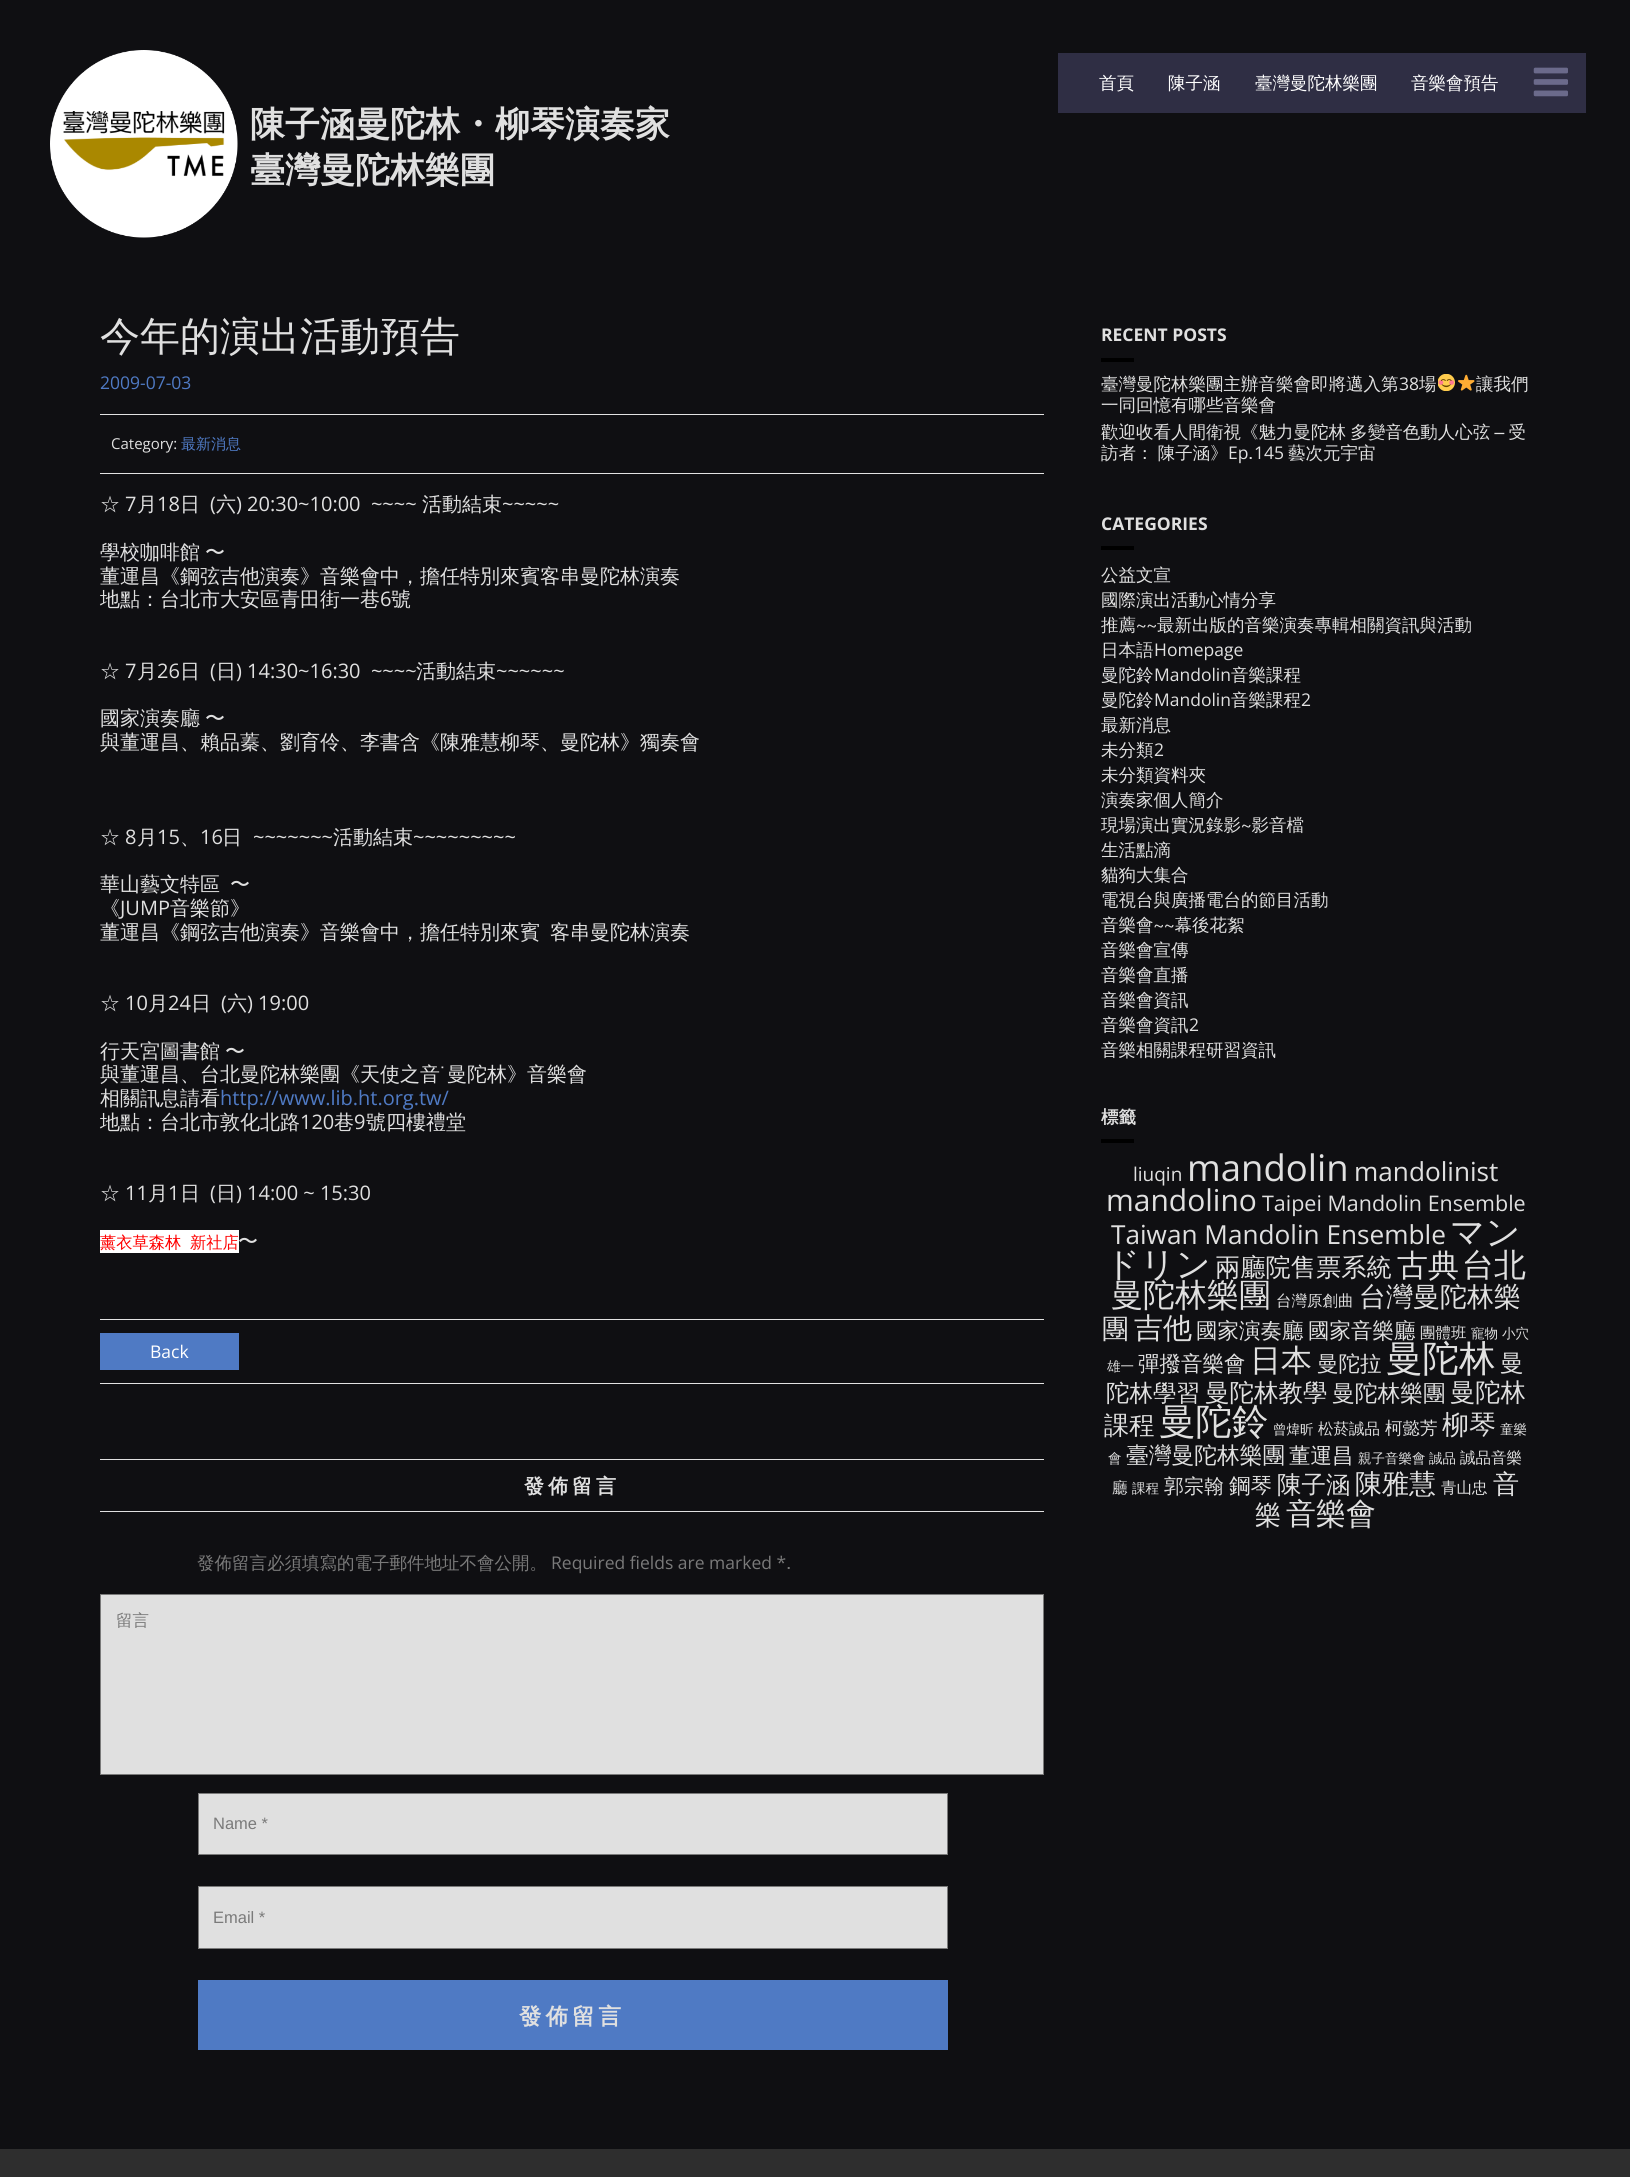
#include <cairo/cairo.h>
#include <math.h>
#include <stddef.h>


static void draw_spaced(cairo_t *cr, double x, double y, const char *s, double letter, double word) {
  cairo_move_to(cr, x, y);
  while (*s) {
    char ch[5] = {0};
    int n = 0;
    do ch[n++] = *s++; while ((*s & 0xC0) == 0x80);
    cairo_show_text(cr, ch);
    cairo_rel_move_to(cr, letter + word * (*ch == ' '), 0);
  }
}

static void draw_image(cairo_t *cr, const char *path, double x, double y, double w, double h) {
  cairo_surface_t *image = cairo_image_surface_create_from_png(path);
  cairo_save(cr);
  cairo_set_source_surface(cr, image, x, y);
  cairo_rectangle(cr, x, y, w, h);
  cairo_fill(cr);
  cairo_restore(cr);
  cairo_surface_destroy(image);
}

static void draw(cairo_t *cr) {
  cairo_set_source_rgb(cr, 15 / 255.0, 15 / 255.0, 18 / 255.0);
  cairo_paint(cr);
  cairo_set_source_rgb(cr, 47 / 255.0, 46 / 255.0, 68 / 255.0);
  cairo_rectangle(cr, 1058, 53, 528, 60);
  cairo_fill(cr);
  draw_image(cr, "images/1.png", 1533, 67, 35, 30);
  draw_image(cr, "images/2.png", 50, 50, 188, 188);
  cairo_set_source_rgb(cr, 226 / 255.0, 226 / 255.0, 226 / 255.0);
  cairo_rectangle(cr, 100, 414, 944, 1);
  cairo_fill(cr);
  cairo_rectangle(cr, 100, 473, 944, 1);
  cairo_fill(cr);
  cairo_set_source_rgb(cr, 1, 1, 1);
  cairo_rectangle(cr, 100, 1230, 139, 23);
  cairo_fill(cr);
  cairo_set_source_rgb(cr, 226 / 255.0, 226 / 255.0, 226 / 255.0);
  cairo_rectangle(cr, 100, 1319, 944, 1);
  cairo_fill(cr);
  cairo_rectangle(cr, 100, 1383, 944, 1);
  cairo_fill(cr);
  cairo_set_source_rgb(cr, 79 / 255.0, 122 / 255.0, 196 / 255.0);
  cairo_rectangle(cr, 100, 1333, 139, 37);
  cairo_fill(cr);
  cairo_set_source_rgb(cr, 224 / 255.0, 224 / 255.0, 224 / 255.0);
  cairo_rectangle(cr, 100, 1459, 944, 1);
  cairo_fill(cr);
  cairo_rectangle(cr, 100, 1511, 944, 1);
  cairo_fill(cr);
  cairo_rectangle(cr, 100.5, 1594.5, 943, 180);
  cairo_fill_preserve(cr);
  cairo_set_source_rgb(cr, 122 / 255.0, 122 / 255.0, 122 / 255.0);
  cairo_set_line_width(cr, 1);
  cairo_stroke(cr);
  cairo_set_source_rgb(cr, 224 / 255.0, 224 / 255.0, 224 / 255.0);
  cairo_rectangle(cr, 198.5, 1793.5, 749, 61);
  cairo_fill_preserve(cr);
  cairo_set_source_rgb(cr, 122 / 255.0, 122 / 255.0, 122 / 255.0);
  cairo_stroke(cr);
  cairo_set_source_rgb(cr, 224 / 255.0, 224 / 255.0, 224 / 255.0);
  cairo_rectangle(cr, 198.5, 1886.5, 749, 62);
  cairo_fill_preserve(cr);
  cairo_set_source_rgb(cr, 122 / 255.0, 122 / 255.0, 122 / 255.0);
  cairo_stroke(cr);
  cairo_set_source_rgb(cr, 79 / 255.0, 122 / 255.0, 196 / 255.0);
  cairo_rectangle(cr, 198, 1980, 750, 70);
  cairo_fill(cr);
  cairo_set_source_rgb(cr, 0, 0, 0);
  cairo_rectangle(cr, 1101, 358, 33, 4);
  cairo_fill(cr);
  draw_image(cr, "images/3.png", 1438, 374, 17, 17);
  draw_image(cr, "images/4.png", 1458, 374, 17, 17);
  cairo_rectangle(cr, 1101, 546, 33, 4);
  cairo_fill(cr);
  cairo_rectangle(cr, 1101, 1139, 33, 4);
  cairo_fill(cr);
  cairo_set_source_rgb(cr, 46 / 255.0, 46 / 255.0, 46 / 255.0);
  cairo_rectangle(cr, 0, 2149, 1630, 28);
  cairo_fill(cr);
  cairo_select_font_face(cr, "WenQuanYi Zen Hei Medium", CAIRO_FONT_SLANT_NORMAL, CAIRO_FONT_WEIGHT_NORMAL);
  cairo_set_font_size(cr, 17.5);
  cairo_set_source_rgb(cr, 1, 1, 1);
  cairo_move_to(cr, 1099, 89);
  cairo_show_text(cr, "首頁");
  cairo_move_to(cr, 1168, 89);
  cairo_show_text(cr, "陳子涵");
  cairo_move_to(cr, 1255, 89);
  cairo_show_text(cr, "臺灣曼陀林樂團");
  cairo_move_to(cr, 1411, 89);
  cairo_show_text(cr, "音樂會預告");
  cairo_select_font_face(cr, "WenQuanYi Zen Hei", CAIRO_FONT_SLANT_NORMAL, CAIRO_FONT_WEIGHT_BOLD);
  cairo_set_font_size(cr, 35);
  cairo_set_source_rgb(cr, 224 / 255.0, 224 / 255.0, 224 / 255.0);
  cairo_move_to(cr, 250, 136);
  cairo_show_text(cr, "陳子涵曼陀林・柳琴演奏家");
  cairo_move_to(cr, 250, 182);
  cairo_show_text(cr, "臺灣曼陀林樂團");
  cairo_select_font_face(cr, "WenQuanYi Zen Hei Medium", CAIRO_FONT_SLANT_NORMAL, CAIRO_FONT_WEIGHT_NORMAL);
  cairo_set_font_size(cr, 40);
  cairo_move_to(cr, 100, 350);
  cairo_show_text(cr, "今年的演出活動預告");
  cairo_select_font_face(cr, "Open Sans", CAIRO_FONT_SLANT_NORMAL, CAIRO_FONT_WEIGHT_NORMAL);
  cairo_set_font_size(cr, 17.5);
  cairo_set_source_rgb(cr, 79 / 255.0, 122 / 255.0, 196 / 255.0);
  cairo_move_to(cr, 100, 389);
  cairo_show_text(cr, "2009-07-03");
  cairo_set_font_size(cr, 15);
  cairo_set_source_rgb(cr, 224 / 255.0, 224 / 255.0, 224 / 255.0);
  cairo_move_to(cr, 111, 449);
  cairo_show_text(cr, "Category:");
  cairo_select_font_face(cr, "WenQuanYi Zen Hei Medium", CAIRO_FONT_SLANT_NORMAL, CAIRO_FONT_WEIGHT_NORMAL);
  cairo_set_source_rgb(cr, 79 / 255.0, 122 / 255.0, 196 / 255.0);
  cairo_move_to(cr, 181, 449);
  cairo_show_text(cr, "最新消息");
  cairo_set_font_size(cr, 20);
  cairo_set_source_rgb(cr, 224 / 255.0, 224 / 255.0, 224 / 255.0);
  cairo_move_to(cr, 100, 511);
  cairo_show_text(cr, "☆");
  cairo_select_font_face(cr, "Open Sans", CAIRO_FONT_SLANT_NORMAL, CAIRO_FONT_WEIGHT_NORMAL);
  cairo_move_to(cr, 125, 511);
  cairo_show_text(cr, "7");
  cairo_select_font_face(cr, "WenQuanYi Zen Hei Medium", CAIRO_FONT_SLANT_NORMAL, CAIRO_FONT_WEIGHT_NORMAL);
  cairo_move_to(cr, 137, 511);
  cairo_show_text(cr, "月");
  cairo_select_font_face(cr, "Open Sans", CAIRO_FONT_SLANT_NORMAL, CAIRO_FONT_WEIGHT_NORMAL);
  cairo_move_to(cr, 157, 511);
  cairo_show_text(cr, "18");
  cairo_select_font_face(cr, "WenQuanYi Zen Hei Medium", CAIRO_FONT_SLANT_NORMAL, CAIRO_FONT_WEIGHT_NORMAL);
  cairo_move_to(cr, 180, 511);
  cairo_show_text(cr, "日");
  cairo_select_font_face(cr, "Open Sans", CAIRO_FONT_SLANT_NORMAL, CAIRO_FONT_WEIGHT_NORMAL);
  cairo_move_to(cr, 210, 511);
  cairo_show_text(cr, "(");
  cairo_select_font_face(cr, "WenQuanYi Zen Hei Medium", CAIRO_FONT_SLANT_NORMAL, CAIRO_FONT_WEIGHT_NORMAL);
  cairo_move_to(cr, 216, 511);
  cairo_show_text(cr, "六");
  cairo_select_font_face(cr, "Open Sans", CAIRO_FONT_SLANT_NORMAL, CAIRO_FONT_WEIGHT_NORMAL);
  cairo_move_to(cr, 236, 511);
  cairo_show_text(cr, ") 20:30~10:00  ~~~~");
  cairo_select_font_face(cr, "WenQuanYi Zen Hei Medium", CAIRO_FONT_SLANT_NORMAL, CAIRO_FONT_WEIGHT_NORMAL);
  cairo_move_to(cr, 422, 511);
  cairo_show_text(cr, "活動結束");
  cairo_select_font_face(cr, "Open Sans", CAIRO_FONT_SLANT_NORMAL, CAIRO_FONT_WEIGHT_NORMAL);
  cairo_move_to(cr, 502, 511);
  cairo_show_text(cr, "~~~~~");
  cairo_select_font_face(cr, "WenQuanYi Zen Hei Medium", CAIRO_FONT_SLANT_NORMAL, CAIRO_FONT_WEIGHT_NORMAL);
  draw_spaced(cr, 100, 559, "學校咖啡館 〜", 0, -1);
  cairo_move_to(cr, 100, 583);
  cairo_show_text(cr, "董運昌《鋼弦吉他演奏》音樂會中，擔任特別來賓客串曼陀林演奏");
  cairo_move_to(cr, 100, 606);
  cairo_show_text(cr, "地點：台北市大安區青田街一巷");
  cairo_select_font_face(cr, "Open Sans", CAIRO_FONT_SLANT_NORMAL, CAIRO_FONT_WEIGHT_NORMAL);
  cairo_move_to(cr, 380, 606);
  cairo_show_text(cr, "6");
  cairo_select_font_face(cr, "WenQuanYi Zen Hei Medium", CAIRO_FONT_SLANT_NORMAL, CAIRO_FONT_WEIGHT_NORMAL);
  cairo_move_to(cr, 391, 606);
  cairo_show_text(cr, "號");
  cairo_move_to(cr, 100, 678);
  cairo_show_text(cr, "☆");
  cairo_select_font_face(cr, "Open Sans", CAIRO_FONT_SLANT_NORMAL, CAIRO_FONT_WEIGHT_NORMAL);
  cairo_move_to(cr, 125, 678);
  cairo_show_text(cr, "7");
  cairo_select_font_face(cr, "WenQuanYi Zen Hei Medium", CAIRO_FONT_SLANT_NORMAL, CAIRO_FONT_WEIGHT_NORMAL);
  cairo_move_to(cr, 137, 678);
  cairo_show_text(cr, "月");
  cairo_select_font_face(cr, "Open Sans", CAIRO_FONT_SLANT_NORMAL, CAIRO_FONT_WEIGHT_NORMAL);
  cairo_move_to(cr, 157, 678);
  cairo_show_text(cr, "26");
  cairo_select_font_face(cr, "WenQuanYi Zen Hei Medium", CAIRO_FONT_SLANT_NORMAL, CAIRO_FONT_WEIGHT_NORMAL);
  cairo_move_to(cr, 180, 678);
  cairo_show_text(cr, "日");
  cairo_select_font_face(cr, "Open Sans", CAIRO_FONT_SLANT_NORMAL, CAIRO_FONT_WEIGHT_NORMAL);
  cairo_move_to(cr, 210, 678);
  cairo_show_text(cr, "(");
  cairo_select_font_face(cr, "WenQuanYi Zen Hei Medium", CAIRO_FONT_SLANT_NORMAL, CAIRO_FONT_WEIGHT_NORMAL);
  cairo_move_to(cr, 216, 678);
  cairo_show_text(cr, "日");
  cairo_select_font_face(cr, "Open Sans", CAIRO_FONT_SLANT_NORMAL, CAIRO_FONT_WEIGHT_NORMAL);
  cairo_move_to(cr, 236, 678);
  cairo_show_text(cr, ") 14:30~16:30  ~~~~");
  cairo_select_font_face(cr, "WenQuanYi Zen Hei Medium", CAIRO_FONT_SLANT_NORMAL, CAIRO_FONT_WEIGHT_NORMAL);
  cairo_move_to(cr, 416, 678);
  cairo_show_text(cr, "活動結束");
  cairo_select_font_face(cr, "Open Sans", CAIRO_FONT_SLANT_NORMAL, CAIRO_FONT_WEIGHT_NORMAL);
  cairo_move_to(cr, 496, 678);
  cairo_show_text(cr, "~~~~~~");
  cairo_select_font_face(cr, "WenQuanYi Zen Hei Medium", CAIRO_FONT_SLANT_NORMAL, CAIRO_FONT_WEIGHT_NORMAL);
  draw_spaced(cr, 100, 725, "國家演奏廳 〜", 0, -1);
  cairo_move_to(cr, 100, 749);
  cairo_show_text(cr, "與董運昌、賴品蓁、劉育伶、李書含《陳雅慧柳琴、曼陀林》獨奏會");
  cairo_move_to(cr, 100, 844);
  cairo_show_text(cr, "☆");
  cairo_select_font_face(cr, "Open Sans", CAIRO_FONT_SLANT_NORMAL, CAIRO_FONT_WEIGHT_NORMAL);
  cairo_move_to(cr, 125, 844);
  cairo_show_text(cr, "8");
  cairo_select_font_face(cr, "WenQuanYi Zen Hei Medium", CAIRO_FONT_SLANT_NORMAL, CAIRO_FONT_WEIGHT_NORMAL);
  cairo_move_to(cr, 137, 844);
  cairo_show_text(cr, "月");
  cairo_select_font_face(cr, "Open Sans", CAIRO_FONT_SLANT_NORMAL, CAIRO_FONT_WEIGHT_NORMAL);
  cairo_move_to(cr, 157, 844);
  cairo_show_text(cr, "15");
  cairo_move_to(cr, 200, 844);
  cairo_show_text(cr, "16");
  cairo_select_font_face(cr, "WenQuanYi Zen Hei Medium", CAIRO_FONT_SLANT_NORMAL, CAIRO_FONT_WEIGHT_NORMAL);
  cairo_move_to(cr, 222, 844);
  cairo_show_text(cr, "日");
  cairo_select_font_face(cr, "Open Sans", CAIRO_FONT_SLANT_NORMAL, CAIRO_FONT_WEIGHT_NORMAL);
  cairo_move_to(cr, 253, 844);
  cairo_show_text(cr, "~~~~~~~");
  cairo_select_font_face(cr, "WenQuanYi Zen Hei Medium", CAIRO_FONT_SLANT_NORMAL, CAIRO_FONT_WEIGHT_NORMAL);
  cairo_move_to(cr, 333, 844);
  cairo_show_text(cr, "活動結束");
  cairo_select_font_face(cr, "Open Sans", CAIRO_FONT_SLANT_NORMAL, CAIRO_FONT_WEIGHT_NORMAL);
  cairo_move_to(cr, 413, 844);
  cairo_show_text(cr, "~~~~~~~~~");
  cairo_select_font_face(cr, "WenQuanYi Zen Hei Medium", CAIRO_FONT_SLANT_NORMAL, CAIRO_FONT_WEIGHT_NORMAL);
  cairo_move_to(cr, 180, 844);
  cairo_show_text(cr, "、");
  cairo_move_to(cr, 100, 891);
  cairo_show_text(cr, "華山藝文特區");
  cairo_move_to(cr, 230, 891);
  cairo_show_text(cr, "〜");
  cairo_move_to(cr, 100, 915);
  cairo_show_text(cr, "《");
  cairo_select_font_face(cr, "Open Sans", CAIRO_FONT_SLANT_NORMAL, CAIRO_FONT_WEIGHT_NORMAL);
  cairo_move_to(cr, 120, 915);
  cairo_show_text(cr, "JUMP");
  cairo_select_font_face(cr, "WenQuanYi Zen Hei Medium", CAIRO_FONT_SLANT_NORMAL, CAIRO_FONT_WEIGHT_NORMAL);
  cairo_move_to(cr, 170, 915);
  cairo_show_text(cr, "音樂節》");
  cairo_move_to(cr, 100, 939);
  cairo_show_text(cr, "董運昌《鋼弦吉他演奏》音樂會中，擔任特別來賓");
  cairo_move_to(cr, 550, 939);
  cairo_show_text(cr, "客串曼陀林演奏");
  cairo_move_to(cr, 100, 1010);
  cairo_show_text(cr, "☆");
  cairo_select_font_face(cr, "Open Sans", CAIRO_FONT_SLANT_NORMAL, CAIRO_FONT_WEIGHT_NORMAL);
  cairo_move_to(cr, 125, 1010);
  cairo_show_text(cr, "10");
  cairo_select_font_face(cr, "WenQuanYi Zen Hei Medium", CAIRO_FONT_SLANT_NORMAL, CAIRO_FONT_WEIGHT_NORMAL);
  cairo_move_to(cr, 148, 1010);
  cairo_show_text(cr, "月");
  cairo_select_font_face(cr, "Open Sans", CAIRO_FONT_SLANT_NORMAL, CAIRO_FONT_WEIGHT_NORMAL);
  cairo_move_to(cr, 168, 1010);
  cairo_show_text(cr, "24");
  cairo_select_font_face(cr, "WenQuanYi Zen Hei Medium", CAIRO_FONT_SLANT_NORMAL, CAIRO_FONT_WEIGHT_NORMAL);
  cairo_move_to(cr, 191, 1010);
  cairo_show_text(cr, "日");
  cairo_select_font_face(cr, "Open Sans", CAIRO_FONT_SLANT_NORMAL, CAIRO_FONT_WEIGHT_NORMAL);
  cairo_move_to(cr, 221, 1010);
  cairo_show_text(cr, "(");
  cairo_select_font_face(cr, "WenQuanYi Zen Hei Medium", CAIRO_FONT_SLANT_NORMAL, CAIRO_FONT_WEIGHT_NORMAL);
  cairo_move_to(cr, 227, 1010);
  cairo_show_text(cr, "六");
  cairo_select_font_face(cr, "Open Sans", CAIRO_FONT_SLANT_NORMAL, CAIRO_FONT_WEIGHT_NORMAL);
  cairo_move_to(cr, 247, 1010);
  cairo_show_text(cr, ") 19:00");
  cairo_select_font_face(cr, "WenQuanYi Zen Hei Medium", CAIRO_FONT_SLANT_NORMAL, CAIRO_FONT_WEIGHT_NORMAL);
  draw_spaced(cr, 100, 1058, "行天宮圖書館 〜", 0, -1);
  cairo_move_to(cr, 100, 1081);
  cairo_show_text(cr, "與董運昌、台北曼陀林樂團《天使之音");
  cairo_select_font_face(cr, "Liberation Sans", CAIRO_FONT_SLANT_NORMAL, CAIRO_FONT_WEIGHT_NORMAL);
  cairo_move_to(cr, 440, 1081);
  cairo_show_text(cr, "˙");
  cairo_select_font_face(cr, "WenQuanYi Zen Hei Medium", CAIRO_FONT_SLANT_NORMAL, CAIRO_FONT_WEIGHT_NORMAL);
  cairo_move_to(cr, 447, 1081);
  cairo_show_text(cr, "曼陀林》音樂會");
  cairo_move_to(cr, 100, 1105);
  cairo_show_text(cr, "相關訊息請看");
  cairo_select_font_face(cr, "Open Sans", CAIRO_FONT_SLANT_NORMAL, CAIRO_FONT_WEIGHT_NORMAL);
  cairo_set_source_rgb(cr, 79 / 255.0, 122 / 255.0, 196 / 255.0);
  cairo_move_to(cr, 220, 1105);
  cairo_show_text(cr, "http://www.lib.ht.org.tw/");
  cairo_select_font_face(cr, "WenQuanYi Zen Hei Medium", CAIRO_FONT_SLANT_NORMAL, CAIRO_FONT_WEIGHT_NORMAL);
  cairo_set_source_rgb(cr, 224 / 255.0, 224 / 255.0, 224 / 255.0);
  cairo_move_to(cr, 100, 1129);
  cairo_show_text(cr, "地點：台北市敦化北路");
  cairo_select_font_face(cr, "Open Sans", CAIRO_FONT_SLANT_NORMAL, CAIRO_FONT_WEIGHT_NORMAL);
  cairo_move_to(cr, 300, 1129);
  cairo_show_text(cr, "120");
  cairo_select_font_face(cr, "WenQuanYi Zen Hei Medium", CAIRO_FONT_SLANT_NORMAL, CAIRO_FONT_WEIGHT_NORMAL);
  cairo_move_to(cr, 334, 1129);
  cairo_show_text(cr, "巷");
  cairo_select_font_face(cr, "Open Sans", CAIRO_FONT_SLANT_NORMAL, CAIRO_FONT_WEIGHT_NORMAL);
  cairo_move_to(cr, 354, 1129);
  cairo_show_text(cr, "9");
  cairo_select_font_face(cr, "WenQuanYi Zen Hei Medium", CAIRO_FONT_SLANT_NORMAL, CAIRO_FONT_WEIGHT_NORMAL);
  cairo_move_to(cr, 366, 1129);
  cairo_show_text(cr, "號四樓禮堂");
  cairo_move_to(cr, 100, 1200);
  cairo_show_text(cr, "☆");
  cairo_select_font_face(cr, "Open Sans", CAIRO_FONT_SLANT_NORMAL, CAIRO_FONT_WEIGHT_NORMAL);
  cairo_move_to(cr, 125, 1200);
  cairo_show_text(cr, "11");
  cairo_select_font_face(cr, "WenQuanYi Zen Hei Medium", CAIRO_FONT_SLANT_NORMAL, CAIRO_FONT_WEIGHT_NORMAL);
  cairo_move_to(cr, 148, 1200);
  cairo_show_text(cr, "月");
  cairo_select_font_face(cr, "Open Sans", CAIRO_FONT_SLANT_NORMAL, CAIRO_FONT_WEIGHT_NORMAL);
  cairo_move_to(cr, 168, 1200);
  cairo_show_text(cr, "1");
  cairo_select_font_face(cr, "WenQuanYi Zen Hei Medium", CAIRO_FONT_SLANT_NORMAL, CAIRO_FONT_WEIGHT_NORMAL);
  cairo_move_to(cr, 180, 1200);
  cairo_show_text(cr, "日");
  cairo_select_font_face(cr, "Open Sans", CAIRO_FONT_SLANT_NORMAL, CAIRO_FONT_WEIGHT_NORMAL);
  cairo_move_to(cr, 210, 1200);
  cairo_show_text(cr, "(");
  cairo_select_font_face(cr, "WenQuanYi Zen Hei Medium", CAIRO_FONT_SLANT_NORMAL, CAIRO_FONT_WEIGHT_NORMAL);
  cairo_move_to(cr, 216, 1200);
  cairo_show_text(cr, "日");
  cairo_select_font_face(cr, "Open Sans", CAIRO_FONT_SLANT_NORMAL, CAIRO_FONT_WEIGHT_NORMAL);
  cairo_move_to(cr, 236, 1200);
  cairo_show_text(cr, ") 14:00 ~ 15:30");
  cairo_select_font_face(cr, "WenQuanYi Zen Hei Medium", CAIRO_FONT_SLANT_NORMAL, CAIRO_FONT_WEIGHT_NORMAL);
  cairo_set_font_size(cr, 16.25);
  cairo_set_source_rgb(cr, 1, 0, 0);
  cairo_move_to(cr, 100, 1248);
  cairo_show_text(cr, "薰衣草森林");
  cairo_move_to(cr, 190, 1248);
  cairo_show_text(cr, "新社店");
  cairo_set_font_size(cr, 20);
  cairo_set_source_rgb(cr, 224 / 255.0, 224 / 255.0, 224 / 255.0);
  cairo_move_to(cr, 238, 1248);
  cairo_show_text(cr, "〜");
  cairo_select_font_face(cr, "Open Sans", CAIRO_FONT_SLANT_NORMAL, CAIRO_FONT_WEIGHT_NORMAL);
  cairo_set_font_size(cr, 17.5);
  cairo_set_source_rgb(cr, 1, 1, 1);
  cairo_move_to(cr, 150, 1358);
  cairo_show_text(cr, "Back");
  cairo_select_font_face(cr, "WenQuanYi Zen Hei", CAIRO_FONT_SLANT_NORMAL, CAIRO_FONT_WEIGHT_BOLD);
  cairo_set_font_size(cr, 20);
  cairo_set_source_rgb(cr, 224 / 255.0, 224 / 255.0, 224 / 255.0);
  draw_spaced(cr, 524, 1493, "發佈留言", 4, 0);
  cairo_select_font_face(cr, "WenQuanYi Zen Hei Medium", CAIRO_FONT_SLANT_NORMAL, CAIRO_FONT_WEIGHT_NORMAL);
  cairo_set_font_size(cr, 17.5);
  cairo_set_source_rgb(cr, 122 / 255.0, 122 / 255.0, 122 / 255.0);
  cairo_move_to(cr, 197, 1569);
  cairo_show_text(cr, "發佈留言必須填寫的電子郵件地址不會公開。");
  cairo_select_font_face(cr, "Open Sans", CAIRO_FONT_SLANT_NORMAL, CAIRO_FONT_WEIGHT_NORMAL);
  cairo_move_to(cr, 551, 1569);
  cairo_show_text(cr, "Required fields are marked *");
  cairo_select_font_face(cr, "WenQuanYi Zen Hei Medium", CAIRO_FONT_SLANT_NORMAL, CAIRO_FONT_WEIGHT_NORMAL);
  cairo_move_to(cr, 786, 1569);
  cairo_show_text(cr, ".");
  cairo_set_font_size(cr, 16.5);
  cairo_move_to(cr, 116, 1626);
  cairo_show_text(cr, "留言");
  cairo_select_font_face(cr, "Liberation Sans", CAIRO_FONT_SLANT_NORMAL, CAIRO_FONT_WEIGHT_NORMAL);
  cairo_move_to(cr, 213, 1829);
  cairo_show_text(cr, "Name *");
  cairo_move_to(cr, 213, 1923);
  cairo_show_text(cr, "Email *");
  cairo_select_font_face(cr, "WenQuanYi Zen Hei", CAIRO_FONT_SLANT_NORMAL, CAIRO_FONT_WEIGHT_BOLD);
  cairo_set_font_size(cr, 22.5);
  cairo_set_source_rgb(cr, 224 / 255.0, 224 / 255.0, 224 / 255.0);
  draw_spaced(cr, 519, 2024, "發佈留言", 4, 0);
  cairo_select_font_face(cr, "Open Sans", CAIRO_FONT_SLANT_NORMAL, CAIRO_FONT_WEIGHT_BOLD);
  cairo_set_font_size(cr, 17.5);
  cairo_move_to(cr, 1101, 341);
  cairo_show_text(cr, "RECENT POSTS");
  cairo_select_font_face(cr, "WenQuanYi Zen Hei Medium", CAIRO_FONT_SLANT_NORMAL, CAIRO_FONT_WEIGHT_NORMAL);
  cairo_move_to(cr, 1101, 390);
  cairo_show_text(cr, "臺灣曼陀林樂團主辦音樂會即將邁入第");
  cairo_select_font_face(cr, "Open Sans", CAIRO_FONT_SLANT_NORMAL, CAIRO_FONT_WEIGHT_NORMAL);
  cairo_move_to(cr, 1399, 390);
  cairo_show_text(cr, "38");
  cairo_select_font_face(cr, "WenQuanYi Zen Hei Medium", CAIRO_FONT_SLANT_NORMAL, CAIRO_FONT_WEIGHT_NORMAL);
  cairo_move_to(cr, 1419, 390);
  cairo_show_text(cr, "場");
  cairo_move_to(cr, 1476, 390);
  cairo_show_text(cr, "讓我們");
  cairo_move_to(cr, 1101, 411);
  cairo_show_text(cr, "一同回憶有哪些音樂會");
  draw_spaced(cr, 1101, 438, "歡迎收看人間衛視《魅力曼陀林 多變音色動人心弦 – 受", 0, -1);
  draw_spaced(cr, 1101, 459, "訪者： 陳子涵》", 0, -1);
  cairo_select_font_face(cr, "Open Sans", CAIRO_FONT_SLANT_NORMAL, CAIRO_FONT_WEIGHT_NORMAL);
  cairo_move_to(cr, 1228, 459);
  cairo_show_text(cr, "Ep");
  cairo_select_font_face(cr, "WenQuanYi Zen Hei Medium", CAIRO_FONT_SLANT_NORMAL, CAIRO_FONT_WEIGHT_NORMAL);
  cairo_move_to(cr, 1248, 459);
  cairo_show_text(cr, ".");
  cairo_select_font_face(cr, "Open Sans", CAIRO_FONT_SLANT_NORMAL, CAIRO_FONT_WEIGHT_NORMAL);
  cairo_move_to(cr, 1254, 459);
  cairo_show_text(cr, "145");
  cairo_select_font_face(cr, "WenQuanYi Zen Hei Medium", CAIRO_FONT_SLANT_NORMAL, CAIRO_FONT_WEIGHT_NORMAL);
  cairo_move_to(cr, 1288, 459);
  cairo_show_text(cr, "藝次元宇宙");
  cairo_select_font_face(cr, "Open Sans", CAIRO_FONT_SLANT_NORMAL, CAIRO_FONT_WEIGHT_BOLD);
  cairo_move_to(cr, 1101, 530);
  cairo_show_text(cr, "CATEGORIES");
  cairo_select_font_face(cr, "WenQuanYi Zen Hei Medium", CAIRO_FONT_SLANT_NORMAL, CAIRO_FONT_WEIGHT_NORMAL);
  cairo_move_to(cr, 1101, 581);
  cairo_show_text(cr, "公益文宣");
  cairo_move_to(cr, 1101, 606);
  cairo_show_text(cr, "國際演出活動心情分享");
  cairo_move_to(cr, 1101, 631);
  cairo_show_text(cr, "推薦~~最新出版的音樂演奏專輯相關資訊與活動");
  cairo_move_to(cr, 1101, 656);
  cairo_show_text(cr, "日本語");
  cairo_select_font_face(cr, "Open Sans", CAIRO_FONT_SLANT_NORMAL, CAIRO_FONT_WEIGHT_NORMAL);
  cairo_move_to(cr, 1154, 656);
  cairo_show_text(cr, "Homepage");
  cairo_select_font_face(cr, "WenQuanYi Zen Hei Medium", CAIRO_FONT_SLANT_NORMAL, CAIRO_FONT_WEIGHT_NORMAL);
  cairo_move_to(cr, 1101, 681);
  cairo_show_text(cr, "曼陀鈴");
  cairo_select_font_face(cr, "Open Sans", CAIRO_FONT_SLANT_NORMAL, CAIRO_FONT_WEIGHT_NORMAL);
  cairo_move_to(cr, 1154, 681);
  cairo_show_text(cr, "Mandolin");
  cairo_select_font_face(cr, "WenQuanYi Zen Hei Medium", CAIRO_FONT_SLANT_NORMAL, CAIRO_FONT_WEIGHT_NORMAL);
  cairo_move_to(cr, 1231, 681);
  cairo_show_text(cr, "音樂課程");
  cairo_move_to(cr, 1101, 706);
  cairo_show_text(cr, "曼陀鈴");
  cairo_select_font_face(cr, "Open Sans", CAIRO_FONT_SLANT_NORMAL, CAIRO_FONT_WEIGHT_NORMAL);
  cairo_move_to(cr, 1154, 706);
  cairo_show_text(cr, "Mandolin");
  cairo_select_font_face(cr, "WenQuanYi Zen Hei Medium", CAIRO_FONT_SLANT_NORMAL, CAIRO_FONT_WEIGHT_NORMAL);
  cairo_move_to(cr, 1231, 706);
  cairo_show_text(cr, "音樂課程");
  cairo_select_font_face(cr, "Open Sans", CAIRO_FONT_SLANT_NORMAL, CAIRO_FONT_WEIGHT_NORMAL);
  cairo_move_to(cr, 1301, 706);
  cairo_show_text(cr, "2");
  cairo_select_font_face(cr, "WenQuanYi Zen Hei Medium", CAIRO_FONT_SLANT_NORMAL, CAIRO_FONT_WEIGHT_NORMAL);
  cairo_move_to(cr, 1101, 731);
  cairo_show_text(cr, "最新消息");
  cairo_move_to(cr, 1101, 756);
  cairo_show_text(cr, "未分類");
  cairo_select_font_face(cr, "Open Sans", CAIRO_FONT_SLANT_NORMAL, CAIRO_FONT_WEIGHT_NORMAL);
  cairo_move_to(cr, 1154, 756);
  cairo_show_text(cr, "2");
  cairo_select_font_face(cr, "WenQuanYi Zen Hei Medium", CAIRO_FONT_SLANT_NORMAL, CAIRO_FONT_WEIGHT_NORMAL);
  cairo_move_to(cr, 1101, 781);
  cairo_show_text(cr, "未分類資料夾");
  cairo_move_to(cr, 1101, 806);
  cairo_show_text(cr, "演奏家個人簡介");
  cairo_move_to(cr, 1101, 831);
  cairo_show_text(cr, "現場演出實況錄影~影音檔");
  cairo_move_to(cr, 1101, 856);
  cairo_show_text(cr, "生活點滴");
  cairo_move_to(cr, 1101, 881);
  cairo_show_text(cr, "貓狗大集合");
  cairo_move_to(cr, 1101, 906);
  cairo_show_text(cr, "電視台與廣播電台的節目活動");
  cairo_move_to(cr, 1101, 931);
  cairo_show_text(cr, "音樂會~~幕後花絮");
  cairo_move_to(cr, 1101, 956);
  cairo_show_text(cr, "音樂會宣傳");
  cairo_move_to(cr, 1101, 981);
  cairo_show_text(cr, "音樂會直播");
  cairo_move_to(cr, 1101, 1006);
  cairo_show_text(cr, "音樂會資訊");
  cairo_move_to(cr, 1101, 1031);
  cairo_show_text(cr, "音樂會資訊");
  cairo_select_font_face(cr, "Open Sans", CAIRO_FONT_SLANT_NORMAL, CAIRO_FONT_WEIGHT_NORMAL);
  cairo_move_to(cr, 1189, 1031);
  cairo_show_text(cr, "2");
  cairo_select_font_face(cr, "WenQuanYi Zen Hei Medium", CAIRO_FONT_SLANT_NORMAL, CAIRO_FONT_WEIGHT_NORMAL);
  cairo_move_to(cr, 1101, 1056);
  cairo_show_text(cr, "音樂相關課程研習資訊");
  cairo_select_font_face(cr, "WenQuanYi Zen Hei", CAIRO_FONT_SLANT_NORMAL, CAIRO_FONT_WEIGHT_BOLD);
  cairo_move_to(cr, 1101, 1123);
  cairo_show_text(cr, "標籤");
  cairo_select_font_face(cr, "Open Sans", CAIRO_FONT_SLANT_NORMAL, CAIRO_FONT_WEIGHT_NORMAL);
  cairo_set_font_size(cr, 19);
  cairo_move_to(cr, 1133, 1181);
  cairo_show_text(cr, "liuqin");
  cairo_set_font_size(cr, 36.5);
  cairo_move_to(cr, 1187, 1181);
  cairo_show_text(cr, "mandolin");
  cairo_set_font_size(cr, 26.2);
  cairo_move_to(cr, 1354, 1181);
  cairo_show_text(cr, "mandolinist");
  cairo_set_font_size(cr, 30);
  cairo_move_to(cr, 1106, 1211);
  cairo_show_text(cr, "mandolino");
  cairo_set_font_size(cr, 21.5);
  cairo_move_to(cr, 1262, 1211);
  cairo_show_text(cr, "Taipei Mandolin Ensemble");
  cairo_set_font_size(cr, 26.2);
  cairo_move_to(cr, 1111, 1244);
  cairo_show_text(cr, "Taiwan Mandolin Ensemble");
  cairo_select_font_face(cr, "WenQuanYi Zen Hei Medium", CAIRO_FONT_SLANT_NORMAL, CAIRO_FONT_WEIGHT_NORMAL);
  cairo_set_font_size(cr, 34.5);
  cairo_move_to(cr, 1450, 1244);
  cairo_show_text(cr, "マン");
  cairo_move_to(cr, 1105, 1276);
  cairo_show_text(cr, "ドリン");
  cairo_set_font_size(cr, 25.25);
  cairo_move_to(cr, 1215, 1276);
  cairo_show_text(cr, "兩廳院售票系統");
  cairo_set_font_size(cr, 31);
  cairo_move_to(cr, 1397, 1276);
  cairo_show_text(cr, "古典");
  cairo_set_font_size(cr, 32);
  cairo_move_to(cr, 1462, 1276);
  cairo_show_text(cr, "台北");
  cairo_move_to(cr, 1111, 1306);
  cairo_show_text(cr, "曼陀林樂團");
  cairo_set_font_size(cr, 15.5);
  cairo_move_to(cr, 1276, 1306);
  cairo_show_text(cr, "台灣原創曲");
  cairo_set_font_size(cr, 27);
  cairo_move_to(cr, 1359, 1306);
  cairo_show_text(cr, "台灣曼陀林樂");
  cairo_move_to(cr, 1102, 1338);
  cairo_show_text(cr, "團");
  cairo_set_font_size(cr, 29);
  cairo_move_to(cr, 1134, 1338);
  cairo_show_text(cr, "吉他");
  cairo_set_font_size(cr, 21.5);
  cairo_move_to(cr, 1196, 1338);
  cairo_show_text(cr, "國家演奏廳");
  cairo_move_to(cr, 1308, 1338);
  cairo_show_text(cr, "國家音樂廳");
  cairo_set_font_size(cr, 15.5);
  cairo_move_to(cr, 1420, 1338);
  cairo_show_text(cr, "團體班");
  cairo_set_font_size(cr, 13.5);
  cairo_move_to(cr, 1471, 1338);
  cairo_show_text(cr, "寵物");
  cairo_move_to(cr, 1502, 1338);
  cairo_show_text(cr, "小穴");
  cairo_move_to(cr, 1107, 1371);
  cairo_show_text(cr, "雄一");
  cairo_set_font_size(cr, 21.5);
  cairo_move_to(cr, 1138, 1371);
  cairo_show_text(cr, "彈撥音樂會");
  cairo_set_font_size(cr, 31);
  cairo_move_to(cr, 1250, 1371);
  cairo_show_text(cr, "日本");
  cairo_set_font_size(cr, 21.5);
  cairo_move_to(cr, 1317, 1371);
  cairo_show_text(cr, "曼陀拉");
  cairo_set_font_size(cr, 36.5);
  cairo_move_to(cr, 1386, 1371);
  cairo_show_text(cr, "曼陀林");
  cairo_set_font_size(cr, 23.5);
  cairo_move_to(cr, 1500, 1371);
  cairo_show_text(cr, "曼");
  cairo_move_to(cr, 1106, 1401);
  cairo_show_text(cr, "陀林學習");
  cairo_set_font_size(cr, 24.5);
  cairo_move_to(cr, 1205, 1401);
  cairo_show_text(cr, "曼陀林教學");
  cairo_set_font_size(cr, 22.75);
  cairo_move_to(cr, 1332, 1401);
  cairo_show_text(cr, "曼陀林樂團");
  cairo_set_font_size(cr, 25.25);
  cairo_move_to(cr, 1450, 1401);
  cairo_show_text(cr, "曼陀林");
  cairo_move_to(cr, 1104, 1434);
  cairo_show_text(cr, "課程");
  cairo_set_font_size(cr, 36.5);
  cairo_move_to(cr, 1159, 1434);
  cairo_show_text(cr, "曼陀鈴");
  cairo_set_font_size(cr, 13.5);
  cairo_move_to(cr, 1273, 1434);
  cairo_show_text(cr, "曾煒昕");
  cairo_set_font_size(cr, 15.5);
  cairo_move_to(cr, 1318, 1434);
  cairo_show_text(cr, "松菸誠品");
  cairo_set_font_size(cr, 17.5);
  cairo_move_to(cr, 1385, 1434);
  cairo_show_text(cr, "柯懿芳");
  cairo_set_font_size(cr, 27);
  cairo_move_to(cr, 1442, 1434);
  cairo_show_text(cr, "柳琴");
  cairo_set_font_size(cr, 13.5);
  cairo_move_to(cr, 1500, 1434);
  cairo_show_text(cr, "童樂");
  cairo_move_to(cr, 1108, 1463);
  cairo_show_text(cr, "會");
  cairo_set_font_size(cr, 22.75);
  cairo_move_to(cr, 1126, 1463);
  cairo_show_text(cr, "臺灣曼陀林樂團");
  cairo_set_font_size(cr, 21.5);
  cairo_move_to(cr, 1289, 1463);
  cairo_show_text(cr, "董運昌");
  cairo_set_font_size(cr, 13.5);
  cairo_move_to(cr, 1358, 1463);
  cairo_show_text(cr, "親子音樂會");
  cairo_move_to(cr, 1429, 1463);
  cairo_show_text(cr, "誠品");
  cairo_set_font_size(cr, 15.5);
  cairo_move_to(cr, 1460, 1463);
  cairo_show_text(cr, "誠品音樂");
  cairo_move_to(cr, 1112, 1493);
  cairo_show_text(cr, "廳");
  cairo_set_font_size(cr, 13.5);
  cairo_move_to(cr, 1132, 1493);
  cairo_show_text(cr, "課程");
  cairo_set_font_size(cr, 20);
  cairo_move_to(cr, 1164, 1493);
  cairo_show_text(cr, "郭宗翰");
  cairo_set_font_size(cr, 21.5);
  cairo_move_to(cr, 1229, 1493);
  cairo_show_text(cr, "鋼琴");
  cairo_set_font_size(cr, 24.5);
  cairo_move_to(cr, 1277, 1493);
  cairo_show_text(cr, "陳子涵");
  cairo_set_font_size(cr, 27);
  cairo_move_to(cr, 1355, 1493);
  cairo_show_text(cr, "陳雅慧");
  cairo_set_font_size(cr, 15.5);
  cairo_move_to(cr, 1441, 1493);
  cairo_show_text(cr, "青山忠");
  cairo_set_font_size(cr, 26.2);
  cairo_move_to(cr, 1493, 1493);
  cairo_show_text(cr, "音");
  cairo_move_to(cr, 1255, 1524);
  cairo_show_text(cr, "樂");
  cairo_set_font_size(cr, 30);
  cairo_move_to(cr, 1286, 1524);
  cairo_show_text(cr, "音樂會");
}

int main(void) {
  cairo_surface_t *surface = cairo_image_surface_create(CAIRO_FORMAT_RGB24, 1630, 2177);
  cairo_t *cr = cairo_create(surface);
  cairo_font_options_t *options = cairo_font_options_create();
  cairo_font_options_set_hint_metrics(options, CAIRO_HINT_METRICS_OFF);
  cairo_font_options_set_hint_style(options, CAIRO_HINT_STYLE_NONE);
  cairo_set_font_options(cr, options);
  cairo_set_miter_limit(cr, 4);
  draw(cr);
  cairo_surface_write_to_png(surface, "out.png");
  cairo_font_options_destroy(options);
  cairo_destroy(cr);
  cairo_surface_destroy(surface);
  return 0;
}
